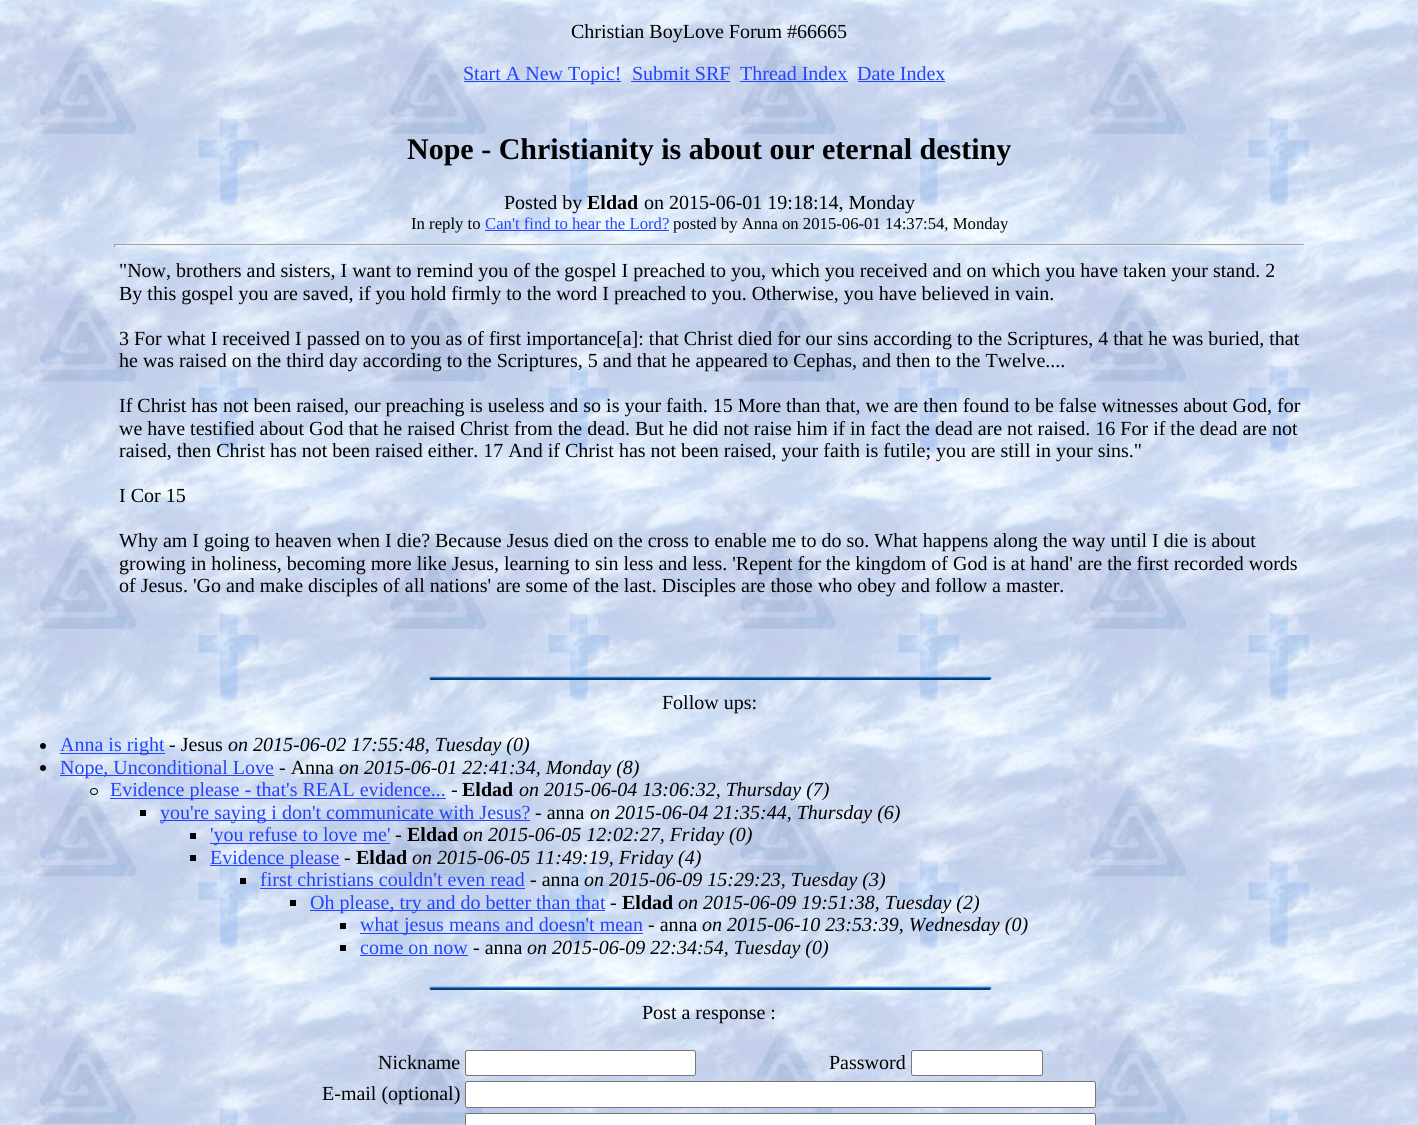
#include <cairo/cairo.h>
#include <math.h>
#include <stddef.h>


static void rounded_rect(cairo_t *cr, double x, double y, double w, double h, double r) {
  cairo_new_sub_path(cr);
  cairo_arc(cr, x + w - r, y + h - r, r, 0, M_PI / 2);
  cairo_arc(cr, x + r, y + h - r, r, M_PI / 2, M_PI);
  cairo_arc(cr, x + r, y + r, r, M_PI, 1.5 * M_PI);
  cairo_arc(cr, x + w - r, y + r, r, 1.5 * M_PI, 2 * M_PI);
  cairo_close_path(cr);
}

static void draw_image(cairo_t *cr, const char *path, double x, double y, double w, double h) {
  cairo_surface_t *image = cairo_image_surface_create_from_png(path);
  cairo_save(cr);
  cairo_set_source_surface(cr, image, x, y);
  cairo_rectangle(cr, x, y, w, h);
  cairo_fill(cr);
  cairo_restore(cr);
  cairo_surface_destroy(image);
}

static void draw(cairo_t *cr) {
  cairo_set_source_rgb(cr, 1, 1, 1);
  cairo_paint(cr);
  draw_image(cr, "images/1.png", 0, 0, 1418, 1125);
  cairo_set_source_rgb(cr, 34 / 255.0, 68 / 255.0, 1);
  cairo_rectangle(cr, 464, 81, 157, 1);
  cairo_fill(cr);
  cairo_rectangle(cr, 631, 81, 99, 1);
  cairo_fill(cr);
  cairo_rectangle(cr, 740, 81, 108, 1);
  cairo_fill(cr);
  cairo_rectangle(cr, 858, 81, 87, 1);
  cairo_fill(cr);
  cairo_rectangle(cr, 485, 230, 184, 1);
  cairo_fill(cr);
  cairo_set_source_rgb(cr, 159 / 255.0, 159 / 255.0, 159 / 255.0);
  cairo_rectangle(cr, 114, 244, 1191, 1);
  cairo_fill(cr);
  cairo_set_source_rgb(cr, 238 / 255.0, 238 / 255.0, 238 / 255.0);
  cairo_rectangle(cr, 1304, 244, 1, 3);
  cairo_fill(cr);
  cairo_rectangle(cr, 114, 245, 1191, 1);
  cairo_fill(cr);
  cairo_set_source_rgb(cr, 159 / 255.0, 159 / 255.0, 159 / 255.0);
  cairo_rectangle(cr, 114, 244, 1, 3);
  cairo_fill(cr);
  draw_image(cr, "images/2.png", 428, 676, 564, 4);
  cairo_set_source_rgb(cr, 0, 0, 0);
  cairo_arc(cr, 43, 746, 3, 0, 2 * M_PI);
  cairo_fill(cr);
  cairo_set_source_rgb(cr, 34 / 255.0, 68 / 255.0, 1);
  cairo_rectangle(cr, 60, 753, 105, 1);
  cairo_fill(cr);
  cairo_set_source_rgb(cr, 0, 0, 0);
  cairo_arc(cr, 43, 768, 3, 0, 2 * M_PI);
  cairo_fill(cr);
  cairo_set_source_rgb(cr, 34 / 255.0, 68 / 255.0, 1);
  cairo_rectangle(cr, 60, 775, 214, 1);
  cairo_fill(cr);
  rounded_rect(cr, 90.5, 788.5, 7, 6, 3);
  cairo_set_source_rgb(cr, 0, 0, 0);
  cairo_set_line_width(cr, 1);
  cairo_stroke(cr);
  cairo_set_source_rgb(cr, 34 / 255.0, 68 / 255.0, 1);
  cairo_rectangle(cr, 110, 798, 336, 1);
  cairo_fill(cr);
  cairo_set_source_rgb(cr, 0, 0, 0);
  cairo_rectangle(cr, 140, 810, 6, 6);
  cairo_fill(cr);
  cairo_set_source_rgb(cr, 34 / 255.0, 68 / 255.0, 1);
  cairo_rectangle(cr, 160, 820, 370, 1);
  cairo_fill(cr);
  cairo_set_source_rgb(cr, 0, 0, 0);
  cairo_rectangle(cr, 190, 833, 6, 6);
  cairo_fill(cr);
  cairo_set_source_rgb(cr, 34 / 255.0, 68 / 255.0, 1);
  cairo_rectangle(cr, 210, 843, 180, 1);
  cairo_fill(cr);
  cairo_set_source_rgb(cr, 0, 0, 0);
  cairo_rectangle(cr, 190, 855, 6, 6);
  cairo_fill(cr);
  cairo_set_source_rgb(cr, 34 / 255.0, 68 / 255.0, 1);
  cairo_rectangle(cr, 210, 865, 130, 1);
  cairo_fill(cr);
  cairo_set_source_rgb(cr, 0, 0, 0);
  cairo_rectangle(cr, 240, 878, 6, 6);
  cairo_fill(cr);
  cairo_set_source_rgb(cr, 34 / 255.0, 68 / 255.0, 1);
  cairo_rectangle(cr, 260, 888, 265, 1);
  cairo_fill(cr);
  cairo_set_source_rgb(cr, 0, 0, 0);
  cairo_rectangle(cr, 290, 900, 6, 6);
  cairo_fill(cr);
  cairo_set_source_rgb(cr, 34 / 255.0, 68 / 255.0, 1);
  cairo_rectangle(cr, 310, 910, 295, 1);
  cairo_fill(cr);
  cairo_set_source_rgb(cr, 0, 0, 0);
  cairo_rectangle(cr, 340, 923, 6, 6);
  cairo_fill(cr);
  cairo_set_source_rgb(cr, 34 / 255.0, 68 / 255.0, 1);
  cairo_rectangle(cr, 360, 933, 283, 1);
  cairo_fill(cr);
  cairo_set_source_rgb(cr, 0, 0, 0);
  cairo_rectangle(cr, 340, 945, 6, 6);
  cairo_fill(cr);
  cairo_set_source_rgb(cr, 34 / 255.0, 68 / 255.0, 1);
  cairo_rectangle(cr, 360, 955, 108, 1);
  cairo_fill(cr);
  draw_image(cr, "images/3.png", 428, 986, 564, 4);
  cairo_set_source_rgb(cr, 1, 1, 1);
  rounded_rect(cr, 465.5, 1050.5, 230, 25, 2);
  cairo_fill_preserve(cr);
  cairo_set_source_rgb(cr, 118 / 255.0, 118 / 255.0, 118 / 255.0);
  cairo_stroke(cr);
  cairo_set_source_rgb(cr, 1, 1, 1);
  rounded_rect(cr, 911.5, 1050.5, 131, 25, 2);
  cairo_fill_preserve(cr);
  cairo_set_source_rgb(cr, 118 / 255.0, 118 / 255.0, 118 / 255.0);
  cairo_stroke(cr);
  cairo_set_source_rgb(cr, 1, 1, 1);
  rounded_rect(cr, 465.5, 1081.5, 630, 26, 2);
  cairo_fill_preserve(cr);
  cairo_set_source_rgb(cr, 118 / 255.0, 118 / 255.0, 118 / 255.0);
  cairo_stroke(cr);
  cairo_set_source_rgb(cr, 1, 1, 1);
  rounded_rect(cr, 465.5, 1113.5, 630, 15, 2);
  cairo_fill_preserve(cr);
  cairo_set_source_rgb(cr, 118 / 255.0, 118 / 255.0, 118 / 255.0);
  cairo_stroke(cr);
  cairo_select_font_face(cr, "Liberation Serif", CAIRO_FONT_SLANT_NORMAL, CAIRO_FONT_WEIGHT_NORMAL);
  cairo_set_font_size(cr, 20);
  cairo_set_source_rgb(cr, 0, 0, 0);
  cairo_move_to(cr, 571, 38);
  cairo_show_text(cr, "Christian BoyLove Forum #66665");
  cairo_set_source_rgb(cr, 34 / 255.0, 68 / 255.0, 1);
  cairo_move_to(cr, 463, 80);
  cairo_show_text(cr, "Start A New Topic!");
  cairo_move_to(cr, 632, 80);
  cairo_show_text(cr, "Submit SRF");
  cairo_move_to(cr, 740, 80);
  cairo_show_text(cr, "Thread Index");
  cairo_move_to(cr, 857, 80);
  cairo_show_text(cr, "Date Index");
  cairo_select_font_face(cr, "Liberation Serif", CAIRO_FONT_SLANT_NORMAL, CAIRO_FONT_WEIGHT_BOLD);
  cairo_set_font_size(cr, 30);
  cairo_set_source_rgb(cr, 0, 0, 0);
  cairo_move_to(cr, 407, 159);
  cairo_show_text(cr, "Nope - Christianity is about our eternal destiny");
  cairo_select_font_face(cr, "Liberation Serif", CAIRO_FONT_SLANT_NORMAL, CAIRO_FONT_WEIGHT_NORMAL);
  cairo_set_font_size(cr, 20);
  cairo_move_to(cr, 504, 209);
  cairo_show_text(cr, "Posted by");
  cairo_select_font_face(cr, "Liberation Serif", CAIRO_FONT_SLANT_NORMAL, CAIRO_FONT_WEIGHT_BOLD);
  cairo_move_to(cr, 587, 209);
  cairo_show_text(cr, "Eldad");
  cairo_select_font_face(cr, "Liberation Serif", CAIRO_FONT_SLANT_NORMAL, CAIRO_FONT_WEIGHT_NORMAL);
  cairo_move_to(cr, 644, 209);
  cairo_show_text(cr, "on 2015-06-01 19:18:14, Monday");
  cairo_set_font_size(cr, 16.7);
  cairo_move_to(cr, 411, 229);
  cairo_show_text(cr, "In reply to");
  cairo_set_source_rgb(cr, 34 / 255.0, 68 / 255.0, 1);
  cairo_move_to(cr, 485, 229);
  cairo_show_text(cr, "Can't find to hear the Lord?");
  cairo_set_source_rgb(cr, 0, 0, 0);
  cairo_move_to(cr, 673, 229);
  cairo_show_text(cr, "posted by Anna on 2015-06-01 14:37:54, Monday");
  cairo_set_font_size(cr, 20);
  cairo_move_to(cr, 119, 277);
  cairo_show_text(cr, "\"Now, brothers and sisters, I want to remind you of the gospel I preached to you, which you received and on which you have taken your stand. 2");
  cairo_move_to(cr, 119, 300);
  cairo_show_text(cr, "By this gospel you are saved, if you hold firmly to the word I preached to you. Otherwise, you have believed in vain.");
  cairo_move_to(cr, 119, 345);
  cairo_show_text(cr, "3 For what I received I passed on to you as of first importance[a]: that Christ died for our sins according to the Scriptures, 4 that he was buried, that");
  cairo_move_to(cr, 119, 367);
  cairo_show_text(cr, "he was raised on the third day according to the Scriptures, 5 and that he appeared to Cephas, and then to the Twelve....");
  cairo_move_to(cr, 119, 412);
  cairo_show_text(cr, "If Christ has not been raised, our preaching is useless and so is your faith. 15 More than that, we are then found to be false witnesses about God, for");
  cairo_move_to(cr, 119, 435);
  cairo_show_text(cr, "we have testified about God that he raised Christ from the dead. But he did not raise him if in fact the dead are not raised. 16 For if the dead are not");
  cairo_move_to(cr, 119, 457);
  cairo_show_text(cr, "raised, then Christ has not been raised either. 17 And if Christ has not been raised, your faith is futile; you are still in your sins.\"");
  cairo_move_to(cr, 119, 502);
  cairo_show_text(cr, "I Cor 15");
  cairo_move_to(cr, 119, 547);
  cairo_show_text(cr, "Why am I going to heaven when I die? Because Jesus died on the cross to enable me to do so. What happens along the way until I die is about");
  cairo_move_to(cr, 119, 570);
  cairo_show_text(cr, "growing in holiness, becoming more like Jesus, learning to sin less and less. 'Repent for the kingdom of God is at hand' are the first recorded words");
  cairo_move_to(cr, 119, 592);
  cairo_show_text(cr, "of Jesus. 'Go and make disciples of all nations' are some of the last. Disciples are those who obey and follow a master.");
  cairo_move_to(cr, 662, 709);
  cairo_show_text(cr, "Follow ups:");
  cairo_set_source_rgb(cr, 34 / 255.0, 68 / 255.0, 1);
  cairo_move_to(cr, 60, 751);
  cairo_show_text(cr, "Anna is right");
  cairo_set_source_rgb(cr, 0, 0, 0);
  cairo_move_to(cr, 169, 751);
  cairo_show_text(cr, "- Jesus");
  cairo_select_font_face(cr, "Liberation Serif", CAIRO_FONT_SLANT_ITALIC, CAIRO_FONT_WEIGHT_NORMAL);
  cairo_move_to(cr, 228, 751);
  cairo_show_text(cr, "on 2015-06-02 17:55:48, Tuesday (0)");
  cairo_select_font_face(cr, "Liberation Serif", CAIRO_FONT_SLANT_NORMAL, CAIRO_FONT_WEIGHT_NORMAL);
  cairo_set_source_rgb(cr, 34 / 255.0, 68 / 255.0, 1);
  cairo_move_to(cr, 60, 774);
  cairo_show_text(cr, "Nope, Unconditional Love");
  cairo_set_source_rgb(cr, 0, 0, 0);
  cairo_move_to(cr, 279, 774);
  cairo_show_text(cr, "- Anna");
  cairo_select_font_face(cr, "Liberation Serif", CAIRO_FONT_SLANT_ITALIC, CAIRO_FONT_WEIGHT_NORMAL);
  cairo_move_to(cr, 339, 774);
  cairo_show_text(cr, "on 2015-06-01 22:41:34, Monday (8)");
  cairo_select_font_face(cr, "Liberation Serif", CAIRO_FONT_SLANT_NORMAL, CAIRO_FONT_WEIGHT_NORMAL);
  cairo_set_source_rgb(cr, 34 / 255.0, 68 / 255.0, 1);
  cairo_move_to(cr, 110, 796);
  cairo_show_text(cr, "Evidence please - that's REAL evidence...");
  cairo_set_source_rgb(cr, 0, 0, 0);
  cairo_move_to(cr, 451, 796);
  cairo_show_text(cr, "-");
  cairo_select_font_face(cr, "Liberation Serif", CAIRO_FONT_SLANT_NORMAL, CAIRO_FONT_WEIGHT_BOLD);
  cairo_move_to(cr, 462, 796);
  cairo_show_text(cr, "Eldad");
  cairo_select_font_face(cr, "Liberation Serif", CAIRO_FONT_SLANT_ITALIC, CAIRO_FONT_WEIGHT_NORMAL);
  cairo_move_to(cr, 519, 796);
  cairo_show_text(cr, "on 2015-06-04 13:06:32, Thursday (7)");
  cairo_select_font_face(cr, "Liberation Serif", CAIRO_FONT_SLANT_NORMAL, CAIRO_FONT_WEIGHT_NORMAL);
  cairo_set_source_rgb(cr, 34 / 255.0, 68 / 255.0, 1);
  cairo_move_to(cr, 160, 819);
  cairo_show_text(cr, "you're saying i don't communicate with Jesus?");
  cairo_set_source_rgb(cr, 0, 0, 0);
  cairo_move_to(cr, 535, 819);
  cairo_show_text(cr, "- anna");
  cairo_select_font_face(cr, "Liberation Serif", CAIRO_FONT_SLANT_ITALIC, CAIRO_FONT_WEIGHT_NORMAL);
  cairo_move_to(cr, 590, 819);
  cairo_show_text(cr, "on 2015-06-04 21:35:44, Thursday (6)");
  cairo_select_font_face(cr, "Liberation Serif", CAIRO_FONT_SLANT_NORMAL, CAIRO_FONT_WEIGHT_NORMAL);
  cairo_set_source_rgb(cr, 34 / 255.0, 68 / 255.0, 1);
  cairo_move_to(cr, 210, 841);
  cairo_show_text(cr, "'you refuse to love me'");
  cairo_set_source_rgb(cr, 0, 0, 0);
  cairo_move_to(cr, 395, 841);
  cairo_show_text(cr, "-");
  cairo_select_font_face(cr, "Liberation Serif", CAIRO_FONT_SLANT_NORMAL, CAIRO_FONT_WEIGHT_BOLD);
  cairo_move_to(cr, 407, 841);
  cairo_show_text(cr, "Eldad");
  cairo_select_font_face(cr, "Liberation Serif", CAIRO_FONT_SLANT_ITALIC, CAIRO_FONT_WEIGHT_NORMAL);
  cairo_move_to(cr, 463, 841);
  cairo_show_text(cr, "on 2015-06-05 12:02:27, Friday (0)");
  cairo_select_font_face(cr, "Liberation Serif", CAIRO_FONT_SLANT_NORMAL, CAIRO_FONT_WEIGHT_NORMAL);
  cairo_set_source_rgb(cr, 34 / 255.0, 68 / 255.0, 1);
  cairo_move_to(cr, 210, 864);
  cairo_show_text(cr, "Evidence please");
  cairo_set_source_rgb(cr, 0, 0, 0);
  cairo_move_to(cr, 344, 864);
  cairo_show_text(cr, "-");
  cairo_select_font_face(cr, "Liberation Serif", CAIRO_FONT_SLANT_NORMAL, CAIRO_FONT_WEIGHT_BOLD);
  cairo_move_to(cr, 356, 864);
  cairo_show_text(cr, "Eldad");
  cairo_select_font_face(cr, "Liberation Serif", CAIRO_FONT_SLANT_ITALIC, CAIRO_FONT_WEIGHT_NORMAL);
  cairo_move_to(cr, 412, 864);
  cairo_show_text(cr, "on 2015-06-05 11:49:19, Friday (4)");
  cairo_select_font_face(cr, "Liberation Serif", CAIRO_FONT_SLANT_NORMAL, CAIRO_FONT_WEIGHT_NORMAL);
  cairo_set_source_rgb(cr, 34 / 255.0, 68 / 255.0, 1);
  cairo_move_to(cr, 260, 886);
  cairo_show_text(cr, "first christians couldn't even read");
  cairo_set_source_rgb(cr, 0, 0, 0);
  cairo_move_to(cr, 530, 886);
  cairo_show_text(cr, "- anna");
  cairo_select_font_face(cr, "Liberation Serif", CAIRO_FONT_SLANT_ITALIC, CAIRO_FONT_WEIGHT_NORMAL);
  cairo_move_to(cr, 584, 886);
  cairo_show_text(cr, "on 2015-06-09 15:29:23, Tuesday (3)");
  cairo_select_font_face(cr, "Liberation Serif", CAIRO_FONT_SLANT_NORMAL, CAIRO_FONT_WEIGHT_NORMAL);
  cairo_set_source_rgb(cr, 34 / 255.0, 68 / 255.0, 1);
  cairo_move_to(cr, 310, 909);
  cairo_show_text(cr, "Oh please, try and do better than that");
  cairo_set_source_rgb(cr, 0, 0, 0);
  cairo_move_to(cr, 610, 909);
  cairo_show_text(cr, "-");
  cairo_select_font_face(cr, "Liberation Serif", CAIRO_FONT_SLANT_NORMAL, CAIRO_FONT_WEIGHT_BOLD);
  cairo_move_to(cr, 622, 909);
  cairo_show_text(cr, "Eldad");
  cairo_select_font_face(cr, "Liberation Serif", CAIRO_FONT_SLANT_ITALIC, CAIRO_FONT_WEIGHT_NORMAL);
  cairo_move_to(cr, 678, 909);
  cairo_show_text(cr, "on 2015-06-09 19:51:38, Tuesday (2)");
  cairo_select_font_face(cr, "Liberation Serif", CAIRO_FONT_SLANT_NORMAL, CAIRO_FONT_WEIGHT_NORMAL);
  cairo_set_source_rgb(cr, 34 / 255.0, 68 / 255.0, 1);
  cairo_move_to(cr, 360, 931);
  cairo_show_text(cr, "what jesus means and doesn't mean");
  cairo_set_source_rgb(cr, 0, 0, 0);
  cairo_move_to(cr, 648, 931);
  cairo_show_text(cr, "- anna");
  cairo_select_font_face(cr, "Liberation Serif", CAIRO_FONT_SLANT_ITALIC, CAIRO_FONT_WEIGHT_NORMAL);
  cairo_move_to(cr, 702, 931);
  cairo_show_text(cr, "on 2015-06-10 23:53:39, Wednesday (0)");
  cairo_select_font_face(cr, "Liberation Serif", CAIRO_FONT_SLANT_NORMAL, CAIRO_FONT_WEIGHT_NORMAL);
  cairo_set_source_rgb(cr, 34 / 255.0, 68 / 255.0, 1);
  cairo_move_to(cr, 360, 954);
  cairo_show_text(cr, "come on now");
  cairo_set_source_rgb(cr, 0, 0, 0);
  cairo_move_to(cr, 473, 954);
  cairo_show_text(cr, "- anna");
  cairo_select_font_face(cr, "Liberation Serif", CAIRO_FONT_SLANT_ITALIC, CAIRO_FONT_WEIGHT_NORMAL);
  cairo_move_to(cr, 527, 954);
  cairo_show_text(cr, "on 2015-06-09 22:34:54, Tuesday (0)");
  cairo_select_font_face(cr, "Liberation Serif", CAIRO_FONT_SLANT_NORMAL, CAIRO_FONT_WEIGHT_NORMAL);
  cairo_move_to(cr, 642, 1019);
  cairo_show_text(cr, "Post a response :");
  cairo_move_to(cr, 378, 1069);
  cairo_show_text(cr, "Nickname");
  cairo_move_to(cr, 829, 1069);
  cairo_show_text(cr, "Password");
  cairo_move_to(cr, 322, 1100);
  cairo_show_text(cr, "E-mail (optional)");
}

int main(void) {
  cairo_surface_t *surface = cairo_image_surface_create(CAIRO_FORMAT_RGB24, 1418, 1125);
  cairo_t *cr = cairo_create(surface);
  cairo_font_options_t *options = cairo_font_options_create();
  cairo_font_options_set_hint_metrics(options, CAIRO_HINT_METRICS_OFF);
  cairo_font_options_set_hint_style(options, CAIRO_HINT_STYLE_NONE);
  cairo_set_font_options(cr, options);
  cairo_set_miter_limit(cr, 4);
  draw(cr);
  cairo_surface_write_to_png(surface, "out.png");
  cairo_font_options_destroy(options);
  cairo_destroy(cr);
  cairo_surface_destroy(surface);
  return 0;
}
